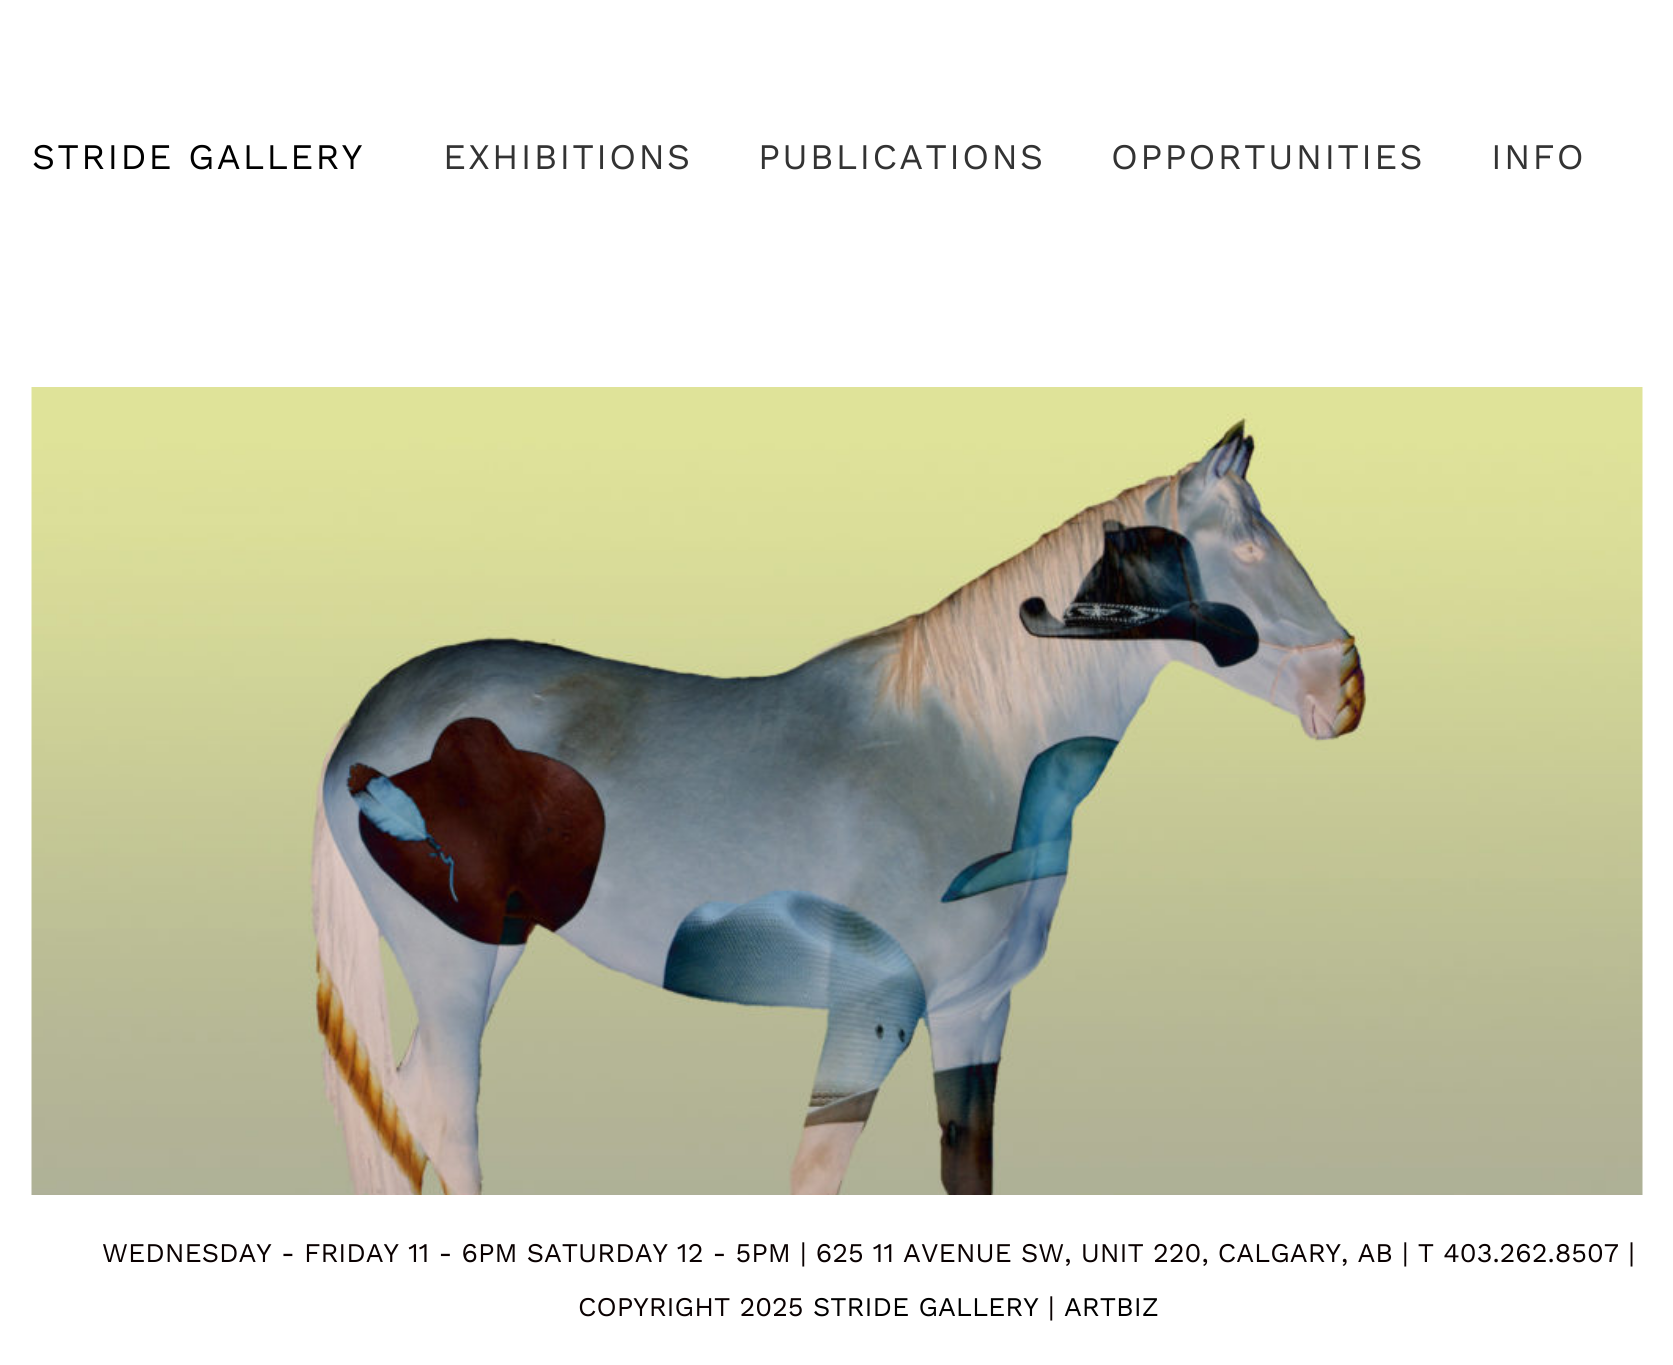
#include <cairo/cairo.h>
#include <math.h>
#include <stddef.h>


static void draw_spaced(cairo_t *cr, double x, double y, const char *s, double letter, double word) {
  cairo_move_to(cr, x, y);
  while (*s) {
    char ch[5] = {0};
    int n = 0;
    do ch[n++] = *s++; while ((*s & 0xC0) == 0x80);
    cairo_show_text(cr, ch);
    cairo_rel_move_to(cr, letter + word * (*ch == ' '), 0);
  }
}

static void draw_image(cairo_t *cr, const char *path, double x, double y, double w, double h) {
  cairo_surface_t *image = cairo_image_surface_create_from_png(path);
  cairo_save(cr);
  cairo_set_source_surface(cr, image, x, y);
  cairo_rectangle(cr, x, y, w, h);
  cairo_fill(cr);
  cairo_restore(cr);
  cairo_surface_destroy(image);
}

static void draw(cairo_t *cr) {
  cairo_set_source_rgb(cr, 1, 1, 1);
  cairo_paint(cr);
  draw_image(cr, "images/1.png", 31, 387, 1612, 808);
  cairo_select_font_face(cr, "Work Sans", CAIRO_FONT_SLANT_NORMAL, CAIRO_FONT_WEIGHT_NORMAL);
  cairo_set_font_size(cr, 36);
  cairo_set_source_rgb(cr, 0, 0, 0);
  draw_spaced(cr, 32, 169, "STRIDE GALLERY", 2.25, 0);
  cairo_set_source_rgb(cr, 51 / 255.0, 51 / 255.0, 51 / 255.0);
  draw_spaced(cr, 443, 169, "EXHIBITIONS", 2.25, 0);
  draw_spaced(cr, 758, 169, "PUBLICATIONS", 2.25, 0);
  draw_spaced(cr, 1111, 169, "OPPORTUNITIES", 2.25, 0);
  draw_spaced(cr, 1491, 169, "INFO", 2.25, 0);
  cairo_set_font_size(cr, 27);
  cairo_set_source_rgb(cr, 10 / 255.0, 1 / 255.0, 1 / 255.0);
  cairo_move_to(cr, 102, 1262);
  cairo_show_text(cr, "WEDNESDAY - FRIDAY 11 - 6PM SATURDAY 12 - 5PM | 625 11 AVENUE SW, UNIT 220, CALGARY, AB | T 403.262.8507 |");
  cairo_move_to(cr, 578, 1316);
  cairo_show_text(cr, "COPYRIGHT 2025");
  cairo_set_source_rgb(cr, 0, 0, 0);
  cairo_move_to(cr, 813, 1316);
  cairo_show_text(cr, "STRIDE GALLERY");
  cairo_set_source_rgb(cr, 10 / 255.0, 1 / 255.0, 1 / 255.0);
  cairo_move_to(cr, 1048, 1316);
  cairo_show_text(cr, "|");
  cairo_set_source_rgb(cr, 0, 0, 0);
  cairo_move_to(cr, 1064, 1316);
  cairo_show_text(cr, "ARTBIZ");
}

int main(void) {
  cairo_surface_t *surface = cairo_image_surface_create(CAIRO_FORMAT_RGB24, 1673, 1365);
  cairo_t *cr = cairo_create(surface);
  cairo_font_options_t *options = cairo_font_options_create();
  cairo_font_options_set_hint_metrics(options, CAIRO_HINT_METRICS_OFF);
  cairo_font_options_set_hint_style(options, CAIRO_HINT_STYLE_NONE);
  cairo_set_font_options(cr, options);
  cairo_set_miter_limit(cr, 4);
  draw(cr);
  cairo_surface_write_to_png(surface, "out.png");
  cairo_font_options_destroy(options);
  cairo_destroy(cr);
  cairo_surface_destroy(surface);
  return 0;
}
